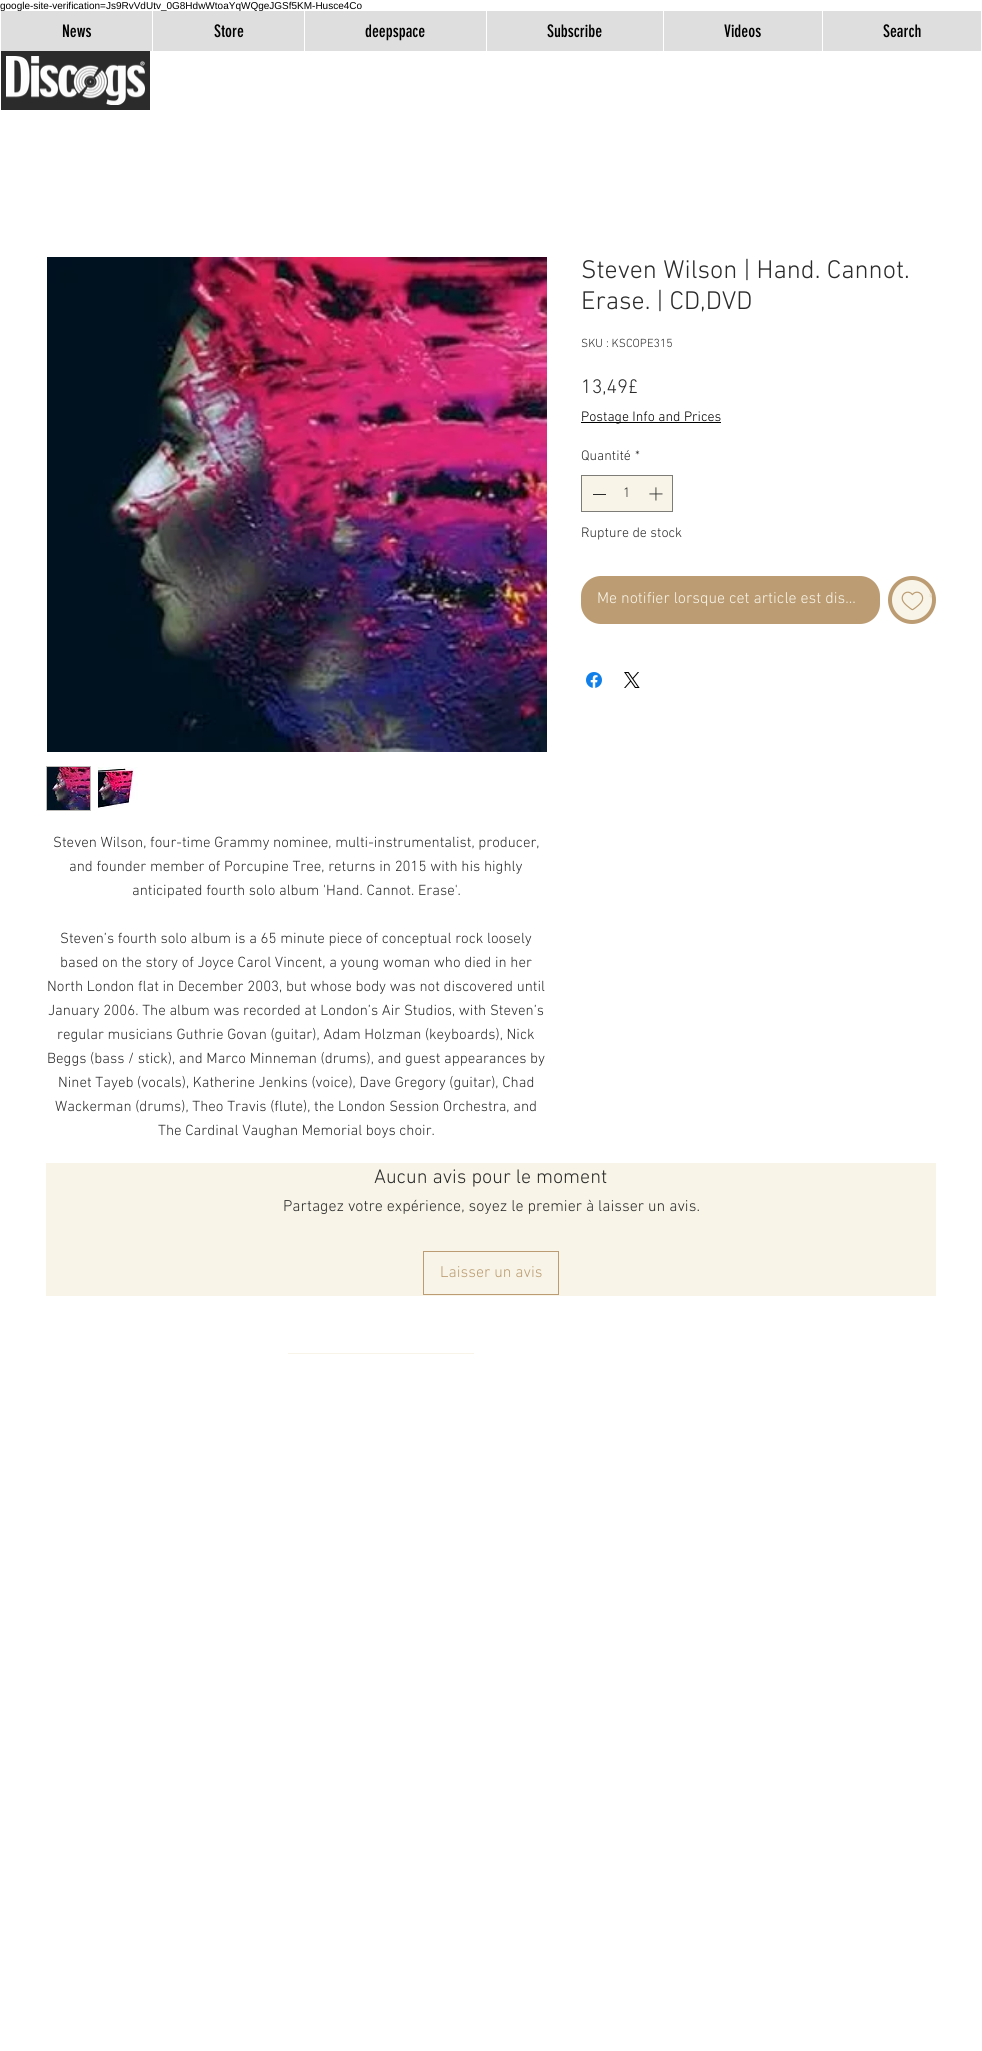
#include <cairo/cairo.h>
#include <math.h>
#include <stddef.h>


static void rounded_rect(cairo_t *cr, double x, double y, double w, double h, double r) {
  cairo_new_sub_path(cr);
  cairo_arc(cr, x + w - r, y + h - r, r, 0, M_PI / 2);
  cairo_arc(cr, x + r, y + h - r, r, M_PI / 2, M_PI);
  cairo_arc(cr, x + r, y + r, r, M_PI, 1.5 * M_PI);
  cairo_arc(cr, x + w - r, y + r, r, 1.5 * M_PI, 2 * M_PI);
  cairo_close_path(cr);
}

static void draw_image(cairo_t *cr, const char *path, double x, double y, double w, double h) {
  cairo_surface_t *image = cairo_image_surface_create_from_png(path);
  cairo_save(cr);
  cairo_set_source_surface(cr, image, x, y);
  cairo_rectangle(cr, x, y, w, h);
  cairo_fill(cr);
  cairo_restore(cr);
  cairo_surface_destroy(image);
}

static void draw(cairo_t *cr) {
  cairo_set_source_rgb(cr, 1, 1, 1);
  cairo_paint(cr);
  cairo_set_source_rgb(cr, 43 / 255.0, 43 / 255.0, 43 / 255.0);
  cairo_rectangle(cr, 1, 51, 149, 59);
  cairo_fill(cr);
  draw_image(cr, "images/1.png", 6, 56, 139, 49);
  cairo_set_source_rgb(cr, 0, 0, 0);
  cairo_rectangle(cr, 581, 422, 140, 1);
  cairo_fill(cr);
  cairo_set_source_rgb(cr, 248 / 255.0, 245 / 255.0, 232 / 255.0);
  cairo_rectangle(cr, 581.5, 475.5, 91, 36);
  cairo_fill_preserve(cr);
  cairo_set_source_rgb(cr, 125 / 255.0, 124 / 255.0, 119 / 255.0);
  cairo_set_line_width(cr, 1);
  cairo_stroke(cr);
  cairo_set_source_rgb(cr, 43 / 255.0, 43 / 255.0, 43 / 255.0);
  cairo_rectangle(cr, 593, 494, 13, 1);
  cairo_fill(cr);
  draw_image(cr, "images/2.png", 649, 487, 14, 14);
  cairo_set_source_rgb(cr, 188 / 255.0, 156 / 255.0, 115 / 255.0);
  rounded_rect(cr, 581, 576, 299, 48, 20);
  cairo_fill(cr);
  cairo_set_source_rgb(cr, 248 / 255.0, 245 / 255.0, 232 / 255.0);
  cairo_arc(cr, 912, 600, 22, 0, 2 * M_PI);
  cairo_fill_preserve(cr);
  cairo_set_source_rgb(cr, 188 / 255.0, 156 / 255.0, 115 / 255.0);
  cairo_set_line_width(cr, 4);
  cairo_stroke(cr);
  draw_image(cr, "images/3.png", 901, 591, 23, 20);
  draw_image(cr, "images/4.png", 586, 672, 16, 16);
  draw_image(cr, "images/5.png", 624, 672, 16, 16);
  draw_image(cr, "images/6.png", 47, 257, 500, 495);
  cairo_rectangle(cr, 46.5, 766.5, 44, 44);
  cairo_set_source_rgb(cr, 189 / 255.0, 188 / 255.0, 184 / 255.0);
  cairo_set_line_width(cr, 1);
  cairo_stroke(cr);
  draw_image(cr, "images/7.png", 47, 767, 43, 43);
  draw_image(cr, "images/8.png", 98, 767, 40, 42);
  cairo_set_source_rgb(cr, 248 / 255.0, 245 / 255.0, 232 / 255.0);
  cairo_rectangle(cr, 46, 1163, 890, 133);
  cairo_fill(cr);
  cairo_rectangle(cr, 423.5, 1251.5, 135, 43);
  cairo_set_source_rgb(cr, 188 / 255.0, 156 / 255.0, 115 / 255.0);
  cairo_stroke(cr);
  cairo_set_source_rgb(cr, 248 / 255.0, 245 / 255.0, 232 / 255.0);
  cairo_rectangle(cr, 288, 1353, 186, 1);
  cairo_fill(cr);
  cairo_select_font_face(cr, "Liberation Sans", CAIRO_FONT_SLANT_NORMAL, CAIRO_FONT_WEIGHT_NORMAL);
  cairo_set_font_size(cr, 10);
  cairo_set_source_rgb(cr, 0, 0, 0);
  cairo_move_to(cr, 0, 9);
  cairo_show_text(cr, "google-site-verification=Js9RvVdUtv_0G8HdwWtoaYqWQgeJGSf5KM-Husce4Co");
  cairo_set_source_rgba(cr, 219 / 255.0, 219 / 255.0, 219 / 255.0, 0.9);
  cairo_rectangle(cr, 1, 11, 980, 40);
  cairo_fill(cr);
  cairo_select_font_face(cr, "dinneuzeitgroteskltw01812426", CAIRO_FONT_SLANT_NORMAL, CAIRO_FONT_WEIGHT_NORMAL);
  cairo_set_font_size(cr, 17);
  cairo_set_source_rgb(cr, 0, 0, 0);
  cairo_move_to(cr, 62, 37);
  cairo_show_text(cr, "News");
  cairo_set_source_rgb(cr, 1, 1, 1);
  cairo_rectangle(cr, 152, 11, 1, 40);
  cairo_fill(cr);
  cairo_set_source_rgb(cr, 0, 0, 0);
  cairo_move_to(cr, 214, 37);
  cairo_show_text(cr, "Store");
  cairo_set_source_rgb(cr, 1, 1, 1);
  cairo_rectangle(cr, 304, 11, 1, 40);
  cairo_fill(cr);
  cairo_set_source_rgb(cr, 0, 0, 0);
  cairo_move_to(cr, 365, 37);
  cairo_show_text(cr, "deepspace");
  cairo_set_source_rgb(cr, 1, 1, 1);
  cairo_rectangle(cr, 486, 11, 1, 40);
  cairo_fill(cr);
  cairo_set_source_rgb(cr, 0, 0, 0);
  cairo_move_to(cr, 547, 37);
  cairo_show_text(cr, "Subscribe");
  cairo_set_source_rgb(cr, 1, 1, 1);
  cairo_rectangle(cr, 663, 11, 1, 40);
  cairo_fill(cr);
  cairo_set_source_rgb(cr, 0, 0, 0);
  cairo_move_to(cr, 724, 37);
  cairo_show_text(cr, "Videos");
  cairo_set_source_rgb(cr, 1, 1, 1);
  cairo_rectangle(cr, 822, 11, 1, 40);
  cairo_fill(cr);
  cairo_set_source_rgb(cr, 0, 0, 0);
  cairo_move_to(cr, 883, 37);
  cairo_show_text(cr, "Search");
  cairo_select_font_face(cr, "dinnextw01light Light", CAIRO_FONT_SLANT_NORMAL, CAIRO_FONT_WEIGHT_NORMAL);
  cairo_set_font_size(cr, 26);
  cairo_set_source_rgb(cr, 43 / 255.0, 43 / 255.0, 43 / 255.0);
  cairo_move_to(cr, 581, 278);
  cairo_show_text(cr, "Steven Wilson | Hand. Cannot.");
  cairo_move_to(cr, 581, 309);
  cairo_show_text(cr, "Erase. | CD,DVD");
  cairo_set_font_size(cr, 12);
  cairo_move_to(cr, 581, 347);
  cairo_show_text(cr, "SKU : KSCOPE315");
  cairo_set_font_size(cr, 20);
  cairo_move_to(cr, 581, 393);
  cairo_show_text(cr, "13,49£");
  cairo_set_font_size(cr, 14);
  cairo_set_source_rgb(cr, 0, 0, 0);
  cairo_move_to(cr, 581, 421);
  cairo_show_text(cr, "Postage Info and Prices");
  cairo_set_source_rgb(cr, 43 / 255.0, 43 / 255.0, 43 / 255.0);
  cairo_move_to(cr, 581, 460);
  cairo_show_text(cr, "Quantité");
  cairo_move_to(cr, 635, 460);
  cairo_show_text(cr, "*");
  cairo_move_to(cr, 623, 497);
  cairo_show_text(cr, "1");
  cairo_move_to(cr, 581, 537);
  cairo_show_text(cr, "Rupture de stock");
  cairo_set_font_size(cr, 16);
  cairo_set_source_rgb(cr, 248 / 255.0, 245 / 255.0, 232 / 255.0);
  cairo_move_to(cr, 597, 603);
  cairo_show_text(cr, "Me notifier lorsque cet article est dis…");
  cairo_save(cr);
  cairo_rectangle(cr, 892, 584, 40, 32);
  cairo_clip(cr);
  cairo_select_font_face(cr, "dinnextw01light Light", CAIRO_FONT_SLANT_ITALIC, CAIRO_FONT_WEIGHT_NORMAL);
  cairo_set_source_rgb(cr, 234 / 255.0, 224 / 255.0, 205 / 255.0);
  cairo_move_to(cr, 926, 604);
  cairo_show_text(cr, "*");
  cairo_restore(cr);
  cairo_set_font_size(cr, 15);
  cairo_set_source_rgb(cr, 43 / 255.0, 43 / 255.0, 43 / 255.0);
  cairo_move_to(cr, 53, 847);
  cairo_show_text(cr, "Steven Wilson, four-time Grammy nominee, multi-instrumentalist, producer,");
  cairo_move_to(cr, 69, 871);
  cairo_show_text(cr, "and founder member of Porcupine Tree, returns in 2015 with his highly");
  cairo_move_to(cr, 132, 895);
  cairo_show_text(cr, "anticipated fourth solo album 'Hand. Cannot. Erase'.");
  cairo_move_to(cr, 60, 943);
  cairo_show_text(cr, "Steven’s fourth solo album is a 65 minute piece of conceptual rock loosely");
  cairo_move_to(cr, 60, 967);
  cairo_show_text(cr, "based on the story of Joyce Carol Vincent, a young woman who died in her");
  cairo_move_to(cr, 47, 991);
  cairo_show_text(cr, "North London flat in December 2003, but whose body was not discovered until");
  cairo_move_to(cr, 48, 1015);
  cairo_show_text(cr, "January 2006. The album was recorded at London’s Air Studios, with Steven’s");
  cairo_move_to(cr, 57, 1039);
  cairo_show_text(cr, "regular musicians Guthrie Govan (guitar), Adam Holzman (keyboards), Nick");
  cairo_move_to(cr, 47, 1063);
  cairo_show_text(cr, "Beggs (bass / stick), and Marco Minneman (drums), and guest appearances by");
  cairo_move_to(cr, 58, 1087);
  cairo_show_text(cr, "Ninet Tayeb (vocals), Katherine Jenkins (voice), Dave Gregory (guitar), Chad");
  cairo_move_to(cr, 55, 1111);
  cairo_show_text(cr, "Wackerman (drums), Theo Travis (flute), the London Session Orchestra, and");
  cairo_move_to(cr, 158, 1135);
  cairo_show_text(cr, "The Cardinal Vaughan Memorial boys choir.");
  cairo_set_font_size(cr, 20);
  cairo_move_to(cr, 374, 1183);
  cairo_show_text(cr, "Aucun avis pour le moment");
  cairo_set_font_size(cr, 16);
  cairo_move_to(cr, 283, 1211);
  cairo_show_text(cr, "Partagez votre expérience, soyez le premier à laisser un avis.");
  cairo_set_source_rgb(cr, 188 / 255.0, 156 / 255.0, 115 / 255.0);
  cairo_move_to(cr, 440, 1277);
  cairo_show_text(cr, "Laisser un avis");
}

int main(void) {
  cairo_surface_t *surface = cairo_image_surface_create(CAIRO_FORMAT_RGB24, 982, 2051);
  cairo_t *cr = cairo_create(surface);
  cairo_font_options_t *options = cairo_font_options_create();
  cairo_font_options_set_hint_metrics(options, CAIRO_HINT_METRICS_OFF);
  cairo_font_options_set_hint_style(options, CAIRO_HINT_STYLE_NONE);
  cairo_set_font_options(cr, options);
  cairo_set_miter_limit(cr, 4);
  draw(cr);
  cairo_surface_write_to_png(surface, "out.png");
  cairo_font_options_destroy(options);
  cairo_destroy(cr);
  cairo_surface_destroy(surface);
  return 0;
}
